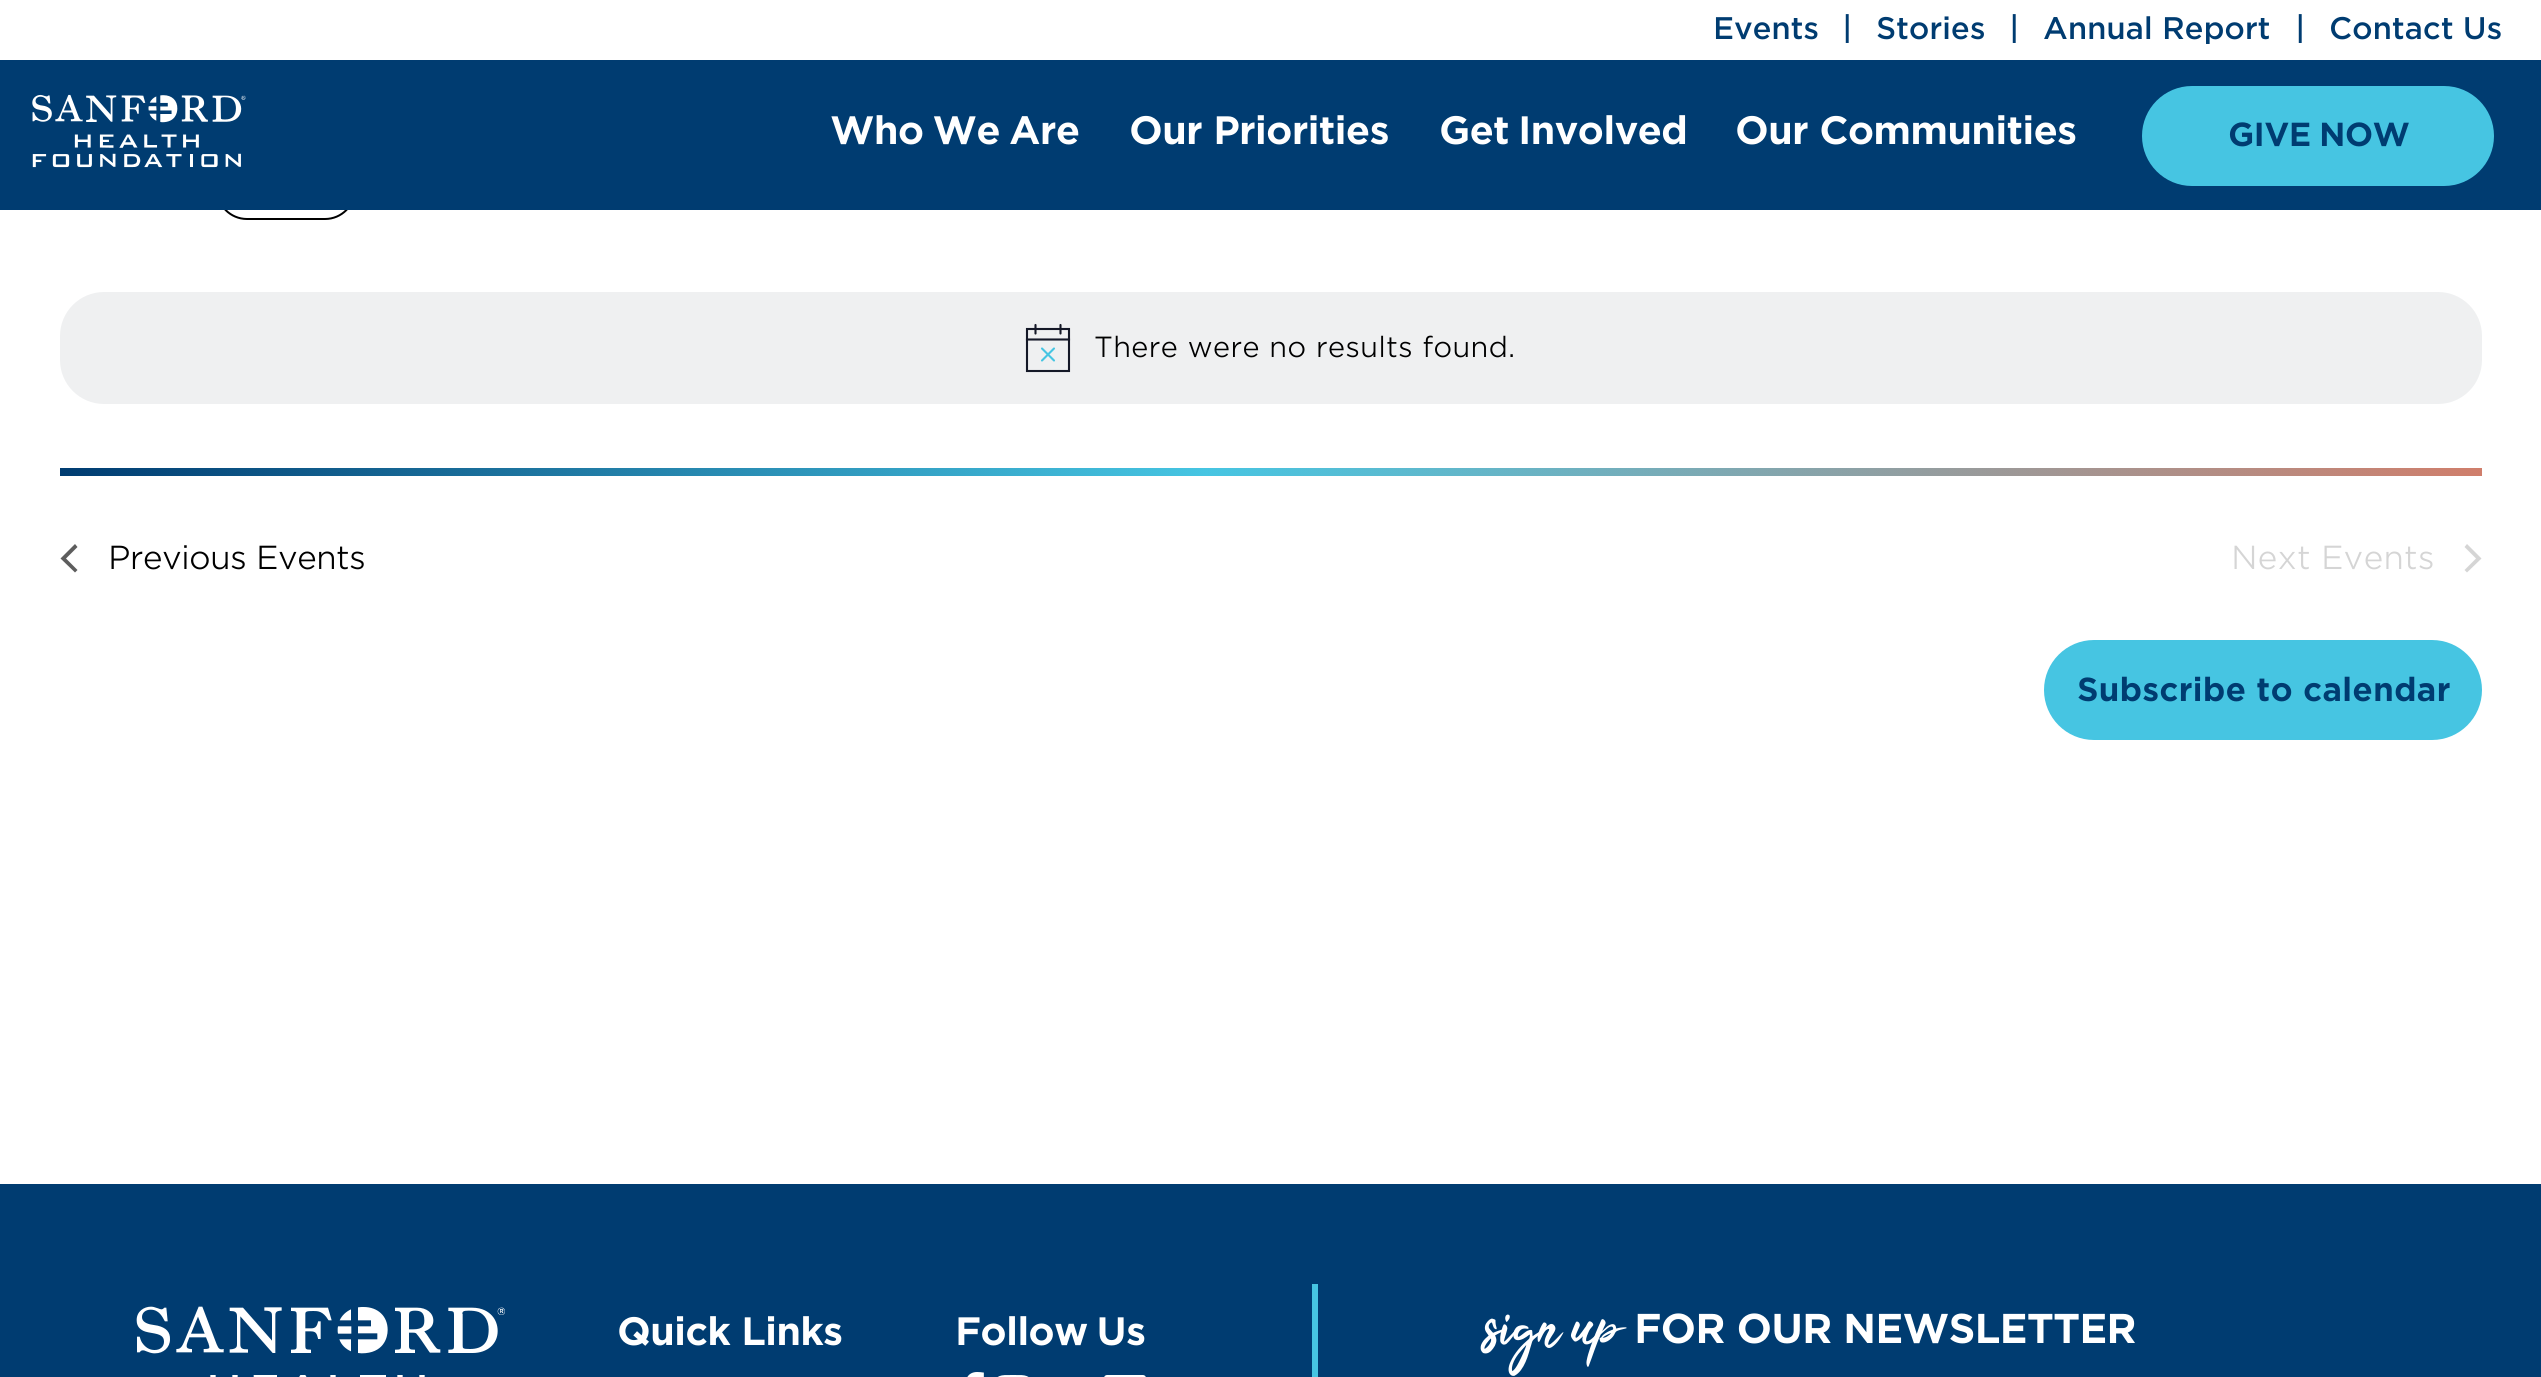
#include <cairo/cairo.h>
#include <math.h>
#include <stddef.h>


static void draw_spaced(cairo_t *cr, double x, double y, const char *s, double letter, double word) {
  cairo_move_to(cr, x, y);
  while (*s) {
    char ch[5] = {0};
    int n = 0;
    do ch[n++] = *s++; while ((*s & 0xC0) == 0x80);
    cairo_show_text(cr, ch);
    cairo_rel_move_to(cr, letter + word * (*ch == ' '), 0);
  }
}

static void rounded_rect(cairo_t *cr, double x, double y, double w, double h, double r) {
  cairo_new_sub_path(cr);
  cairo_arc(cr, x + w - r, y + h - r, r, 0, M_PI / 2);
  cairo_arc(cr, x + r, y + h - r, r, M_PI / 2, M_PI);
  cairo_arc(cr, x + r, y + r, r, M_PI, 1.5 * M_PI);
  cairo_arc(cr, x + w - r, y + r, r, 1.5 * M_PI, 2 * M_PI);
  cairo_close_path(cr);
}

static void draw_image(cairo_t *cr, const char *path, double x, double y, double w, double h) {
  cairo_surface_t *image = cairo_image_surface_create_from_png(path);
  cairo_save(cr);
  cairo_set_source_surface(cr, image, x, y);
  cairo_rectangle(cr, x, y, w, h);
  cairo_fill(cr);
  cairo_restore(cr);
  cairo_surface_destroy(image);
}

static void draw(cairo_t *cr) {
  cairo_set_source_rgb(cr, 1, 1, 1);
  cairo_paint(cr);
  rounded_rect(cr, 217, 159, 138, 60, 30);
  cairo_set_source_rgb(cr, 0, 0, 0);
  cairo_stroke(cr);
  cairo_set_source_rgb(cr, 0, 60 / 255.0, 113 / 255.0);
  cairo_rectangle(cr, 0, 60, 2541, 150);
  cairo_fill(cr);
  draw_image(cr, "images/1.png", 32, 94, 214, 74);
  cairo_set_source_rgb(cr, 70 / 255.0, 197 / 255.0, 226 / 255.0);
  rounded_rect(cr, 2142, 86, 352, 100, 50);
  cairo_fill(cr);
  cairo_set_source_rgb(cr, 239 / 255.0, 240 / 255.0, 241 / 255.0);
  rounded_rect(cr, 60, 292, 2422, 112, 44);
  cairo_fill(cr);
  cairo_new_path(cr);
  cairo_move_to(cr, 1027, 329);
  cairo_line_to(cr, 1069, 329);
  cairo_line_to(cr, 1069, 371);
  cairo_line_to(cr, 1027, 371);
  cairo_close_path(cr);
  cairo_set_source_rgb(cr, 20 / 255.0, 24 / 255.0, 39 / 255.0);
  cairo_set_line_width(cr, 2.1);
  cairo_stroke(cr);
  cairo_new_path(cr);
  cairo_move_to(cr, 1042, 348.5);
  cairo_line_to(cr, 1054, 360.5);
  cairo_move_to(cr, 1054, 348.5);
  cairo_line_to(cr, 1042, 360.5);
  cairo_set_source_rgb(cr, 70 / 255.0, 197 / 255.0, 226 / 255.0);
  cairo_set_line_cap(cr, CAIRO_LINE_CAP_ROUND);
  cairo_stroke(cr);
  cairo_new_path(cr);
  cairo_move_to(cr, 1035.5, 325);
  cairo_line_to(cr, 1035.5, 333.5);
  cairo_move_to(cr, 1060.5, 325);
  cairo_line_to(cr, 1060.5, 333.5);
  cairo_set_source_rgb(cr, 20 / 255.0, 24 / 255.0, 39 / 255.0);
  cairo_stroke(cr);
  cairo_new_path(cr);
  cairo_move_to(cr, 1027, 339.5);
  cairo_line_to(cr, 1069, 339.5);
  cairo_set_line_cap(cr, CAIRO_LINE_CAP_SQUARE);
  cairo_stroke(cr);
  draw_image(cr, "images/2.png", 60, 468, 2422, 8);
  cairo_set_source_rgb(cr, 93 / 255.0, 93 / 255.0, 93 / 255.0);
  cairo_new_path(cr);
  cairo_move_to(cr, 77.5, 570);
  cairo_line_to(cr, 75, 572.5);
  cairo_line_to(cr, 60.5, 558.5);
  cairo_line_to(cr, 75, 544);
  cairo_line_to(cr, 77.5, 547);
  cairo_line_to(cr, 66, 558.5);
  cairo_close_path(cr);
  cairo_fill(cr);
  cairo_set_source_rgb(cr, 213 / 255.0, 213 / 255.0, 213 / 255.0);
  cairo_new_path(cr);
  cairo_move_to(cr, 2464.5, 547);
  cairo_line_to(cr, 2467, 544);
  cairo_line_to(cr, 2481.5, 558.5);
  cairo_line_to(cr, 2467, 572.5);
  cairo_line_to(cr, 2464.5, 570);
  cairo_line_to(cr, 2476, 558.5);
  cairo_close_path(cr);
  cairo_fill(cr);
  cairo_set_source_rgb(cr, 70 / 255.0, 197 / 255.0, 226 / 255.0);
  rounded_rect(cr, 2044, 640, 438, 100, 50);
  cairo_fill(cr);
  cairo_set_source_rgb(cr, 0, 60 / 255.0, 113 / 255.0);
  cairo_rectangle(cr, 0, 1184, 2541, 193);
  cairo_fill(cr);
  cairo_set_source_rgb(cr, 70 / 255.0, 197 / 255.0, 226 / 255.0);
  cairo_rectangle(cr, 1312, 1284, 6, 93);
  cairo_fill(cr);
  draw_image(cr, "images/3.png", 136, 1306, 369, 71);
  draw_image(cr, "images/4.png", 967, 1372, 17, 5);
  draw_image(cr, "images/5.png", 997, 1375, 32, 2);
  draw_image(cr, "images/6.png", 1104, 1375, 42, 2);
  cairo_select_font_face(cr, "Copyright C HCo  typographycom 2 Light", CAIRO_FONT_SLANT_NORMAL, CAIRO_FONT_WEIGHT_NORMAL);
  cairo_set_font_size(cr, 30);
  cairo_set_source_rgb(cr, 0, 60 / 255.0, 113 / 255.0);
  draw_spaced(cr, 1713, 39, "Events", -0.25, 0);
  draw_spaced(cr, 1842, 39, "|", -0.25, 0);
  draw_spaced(cr, 1876, 39, "Stories", -0.25, 0);
  draw_spaced(cr, 2009, 39, "|", -0.25, 0);
  draw_spaced(cr, 2043, 39, "Annual Report", -0.25, 0);
  draw_spaced(cr, 2295, 39, "|", -0.25, 0);
  draw_spaced(cr, 2329, 39, "Contact Us", -0.25, 0);
  cairo_select_font_face(cr, "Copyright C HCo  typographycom", CAIRO_FONT_SLANT_NORMAL, CAIRO_FONT_WEIGHT_NORMAL);
  cairo_set_font_size(cr, 38);
  cairo_set_source_rgb(cr, 1, 1, 1);
  draw_spaced(cr, 830, 144, "Who We Are", -0.9, -2);
  draw_spaced(cr, 1129, 144, "Our Priorities", -0.9, 0);
  draw_spaced(cr, 1439, 144, "Get Involved", -0.9, -2);
  draw_spaced(cr, 1735, 144, "Our Communities", -0.9, 0);
  cairo_set_font_size(cr, 32);
  cairo_set_source_rgb(cr, 0, 60 / 255.0, 113 / 255.0);
  draw_spaced(cr, 2228, 146, "GIVE NOW", -0.75, -1);
  cairo_select_font_face(cr, "Copyright C HCo  typographycom Light", CAIRO_FONT_SLANT_NORMAL, CAIRO_FONT_WEIGHT_NORMAL);
  cairo_set_font_size(cr, 28);
  cairo_set_source_rgb(cr, 0, 0, 0);
  draw_spaced(cr, 1094, 357, "There were no results found.", 0, 0.5);
  cairo_set_font_size(cr, 32);
  draw_spaced(cr, 108, 569, "Previous", -0.75, 0);
  draw_spaced(cr, 256, 569, "Events", -0.75, 0);
  cairo_set_source_rgb(cr, 213 / 255.0, 213 / 255.0, 213 / 255.0);
  cairo_move_to(cr, 2231, 569);
  cairo_show_text(cr, "Next");
  cairo_move_to(cr, 2321, 569);
  cairo_show_text(cr, "Events");
  cairo_select_font_face(cr, "Copyright C HCo  typographycom", CAIRO_FONT_SLANT_NORMAL, CAIRO_FONT_WEIGHT_NORMAL);
  cairo_set_source_rgb(cr, 0, 60 / 255.0, 113 / 255.0);
  cairo_move_to(cr, 2077, 701);
  cairo_show_text(cr, "Subscribe to calendar");
  cairo_set_font_size(cr, 38);
  cairo_set_source_rgb(cr, 1, 1, 1);
  draw_spaced(cr, 617, 1345, "Quick Links", -0.9, 0);
  draw_spaced(cr, 955, 1345, "Follow Us", -0.9, -2);
  cairo_select_font_face(cr, "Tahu", CAIRO_FONT_SLANT_NORMAL, CAIRO_FONT_WEIGHT_NORMAL);
  cairo_set_font_size(cr, 64);
  draw_spaced(cr, 1485, 1343, "sign up", -1, 0);
  cairo_select_font_face(cr, "Copyright C HCo  typographycom", CAIRO_FONT_SLANT_NORMAL, CAIRO_FONT_WEIGHT_NORMAL);
  cairo_set_font_size(cr, 40);
  draw_spaced(cr, 1634, 1343, "FOR OUR NEWSLETTER", -1, 0);
}

int main(void) {
  cairo_surface_t *surface = cairo_image_surface_create(CAIRO_FORMAT_RGB24, 2541, 1377);
  cairo_t *cr = cairo_create(surface);
  cairo_font_options_t *options = cairo_font_options_create();
  cairo_font_options_set_hint_metrics(options, CAIRO_HINT_METRICS_OFF);
  cairo_font_options_set_hint_style(options, CAIRO_HINT_STYLE_NONE);
  cairo_set_font_options(cr, options);
  cairo_set_miter_limit(cr, 4);
  draw(cr);
  cairo_surface_write_to_png(surface, "out.png");
  cairo_font_options_destroy(options);
  cairo_destroy(cr);
  cairo_surface_destroy(surface);
  return 0;
}
